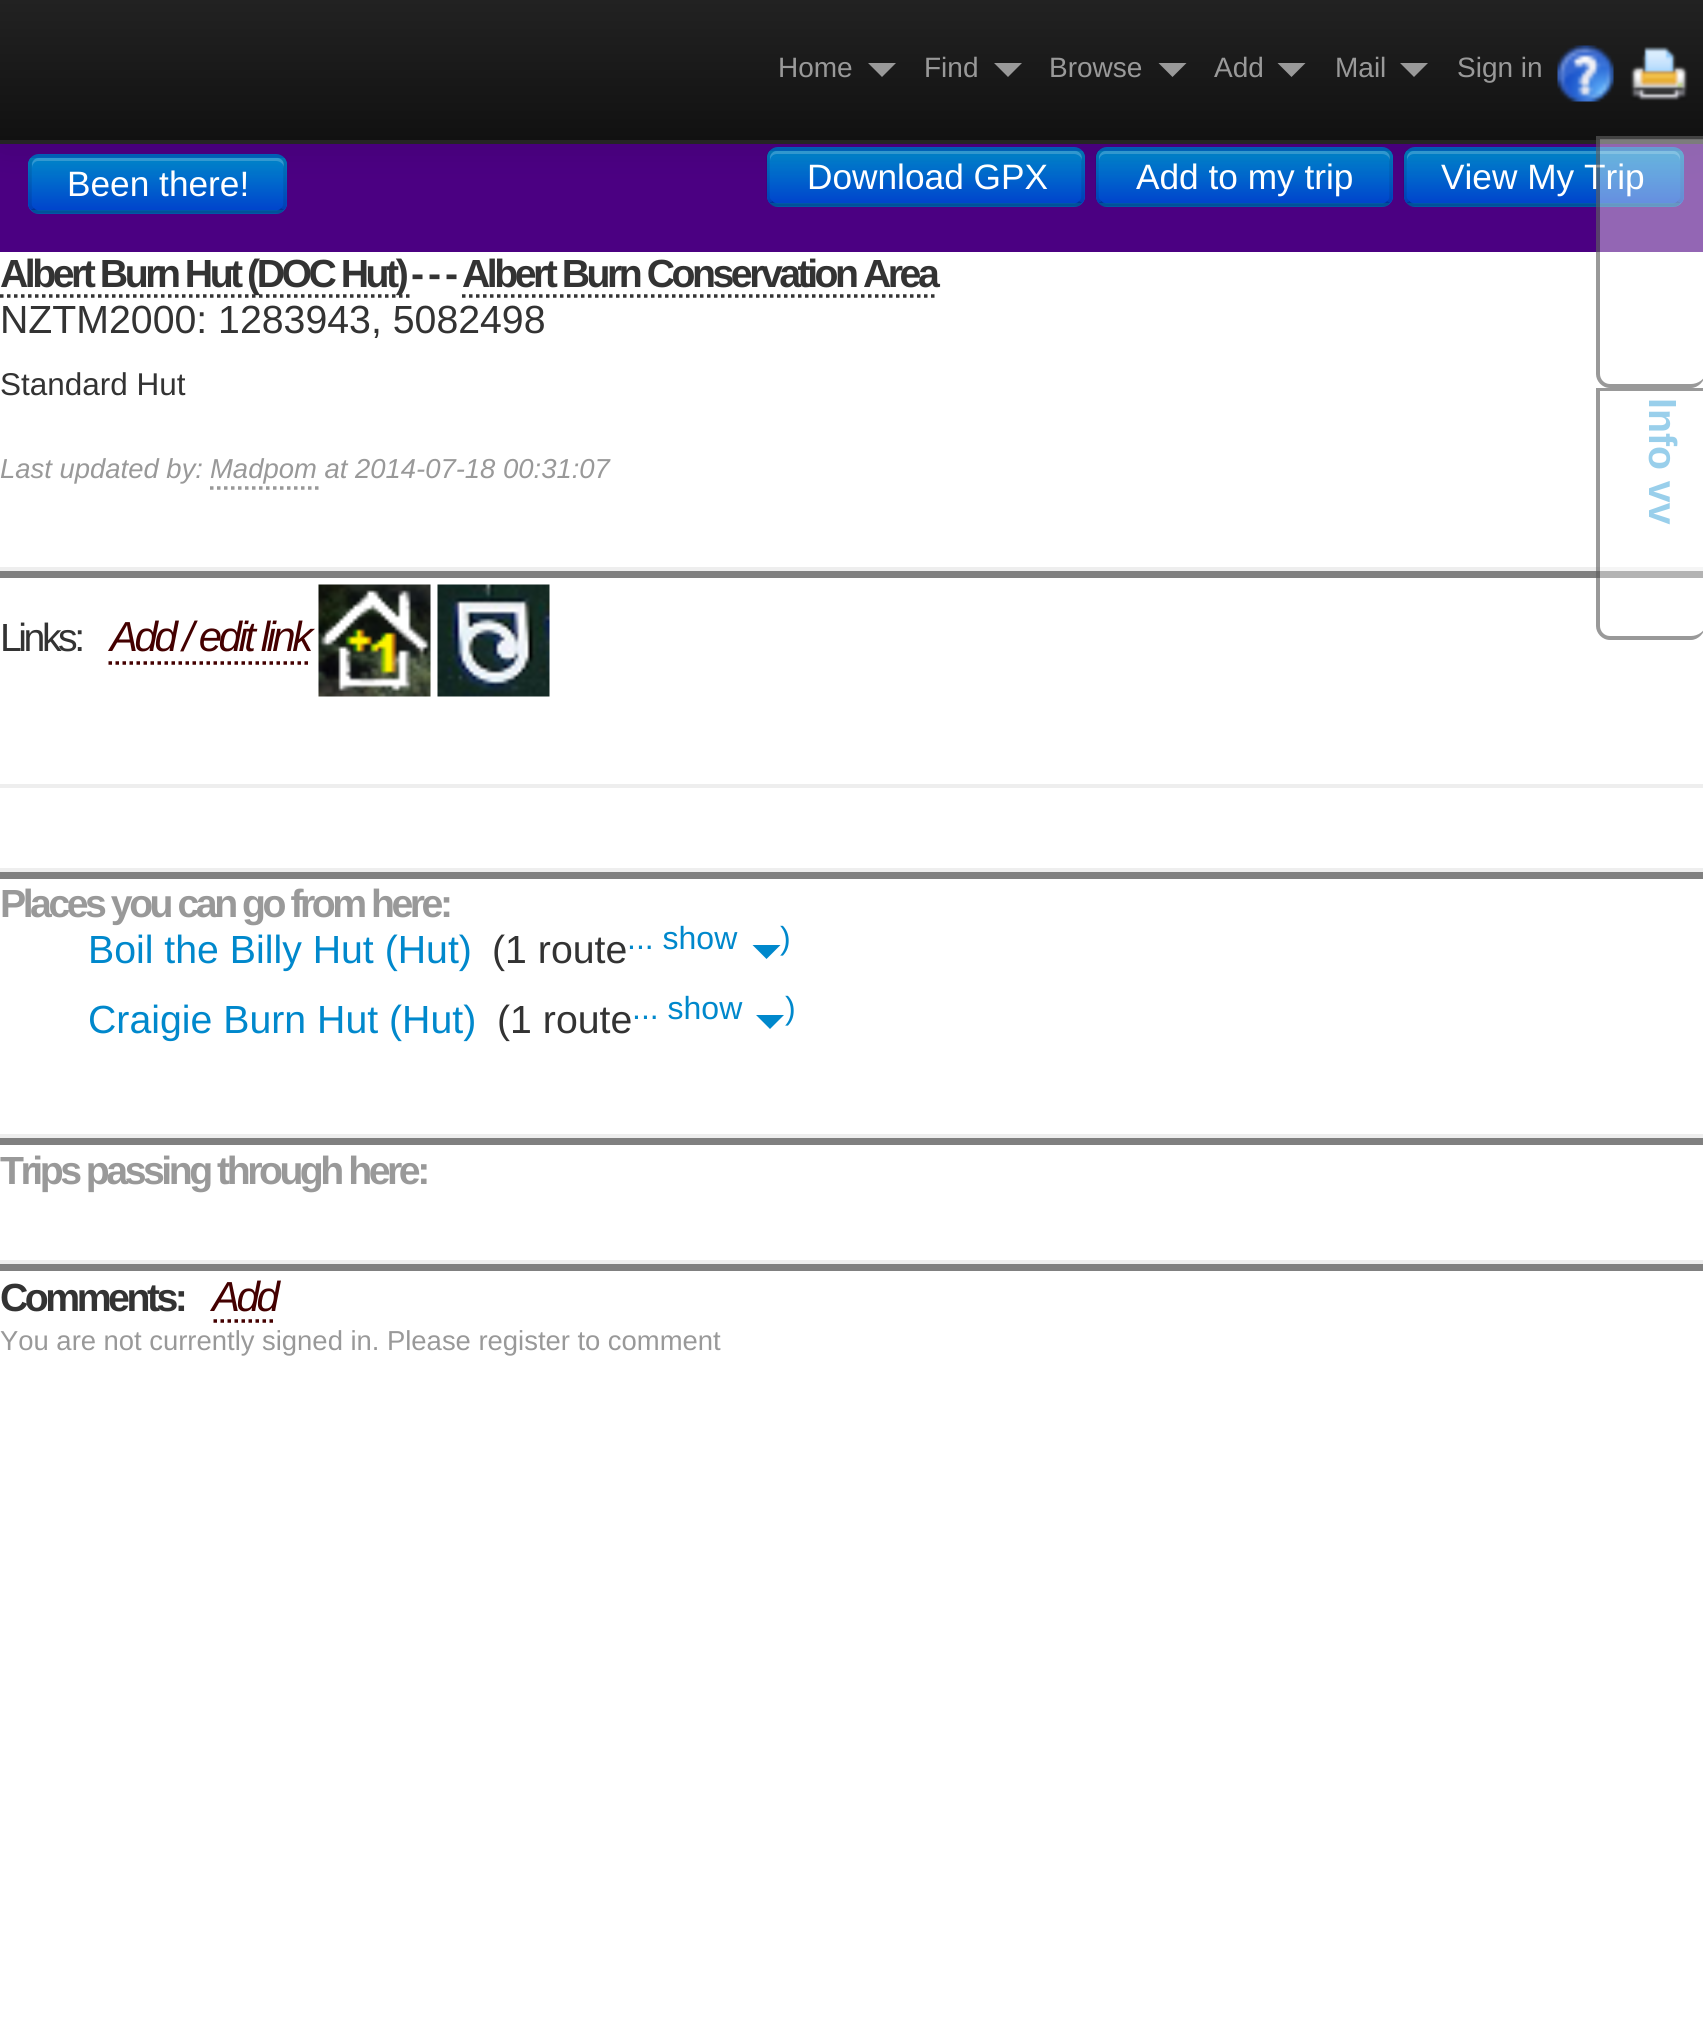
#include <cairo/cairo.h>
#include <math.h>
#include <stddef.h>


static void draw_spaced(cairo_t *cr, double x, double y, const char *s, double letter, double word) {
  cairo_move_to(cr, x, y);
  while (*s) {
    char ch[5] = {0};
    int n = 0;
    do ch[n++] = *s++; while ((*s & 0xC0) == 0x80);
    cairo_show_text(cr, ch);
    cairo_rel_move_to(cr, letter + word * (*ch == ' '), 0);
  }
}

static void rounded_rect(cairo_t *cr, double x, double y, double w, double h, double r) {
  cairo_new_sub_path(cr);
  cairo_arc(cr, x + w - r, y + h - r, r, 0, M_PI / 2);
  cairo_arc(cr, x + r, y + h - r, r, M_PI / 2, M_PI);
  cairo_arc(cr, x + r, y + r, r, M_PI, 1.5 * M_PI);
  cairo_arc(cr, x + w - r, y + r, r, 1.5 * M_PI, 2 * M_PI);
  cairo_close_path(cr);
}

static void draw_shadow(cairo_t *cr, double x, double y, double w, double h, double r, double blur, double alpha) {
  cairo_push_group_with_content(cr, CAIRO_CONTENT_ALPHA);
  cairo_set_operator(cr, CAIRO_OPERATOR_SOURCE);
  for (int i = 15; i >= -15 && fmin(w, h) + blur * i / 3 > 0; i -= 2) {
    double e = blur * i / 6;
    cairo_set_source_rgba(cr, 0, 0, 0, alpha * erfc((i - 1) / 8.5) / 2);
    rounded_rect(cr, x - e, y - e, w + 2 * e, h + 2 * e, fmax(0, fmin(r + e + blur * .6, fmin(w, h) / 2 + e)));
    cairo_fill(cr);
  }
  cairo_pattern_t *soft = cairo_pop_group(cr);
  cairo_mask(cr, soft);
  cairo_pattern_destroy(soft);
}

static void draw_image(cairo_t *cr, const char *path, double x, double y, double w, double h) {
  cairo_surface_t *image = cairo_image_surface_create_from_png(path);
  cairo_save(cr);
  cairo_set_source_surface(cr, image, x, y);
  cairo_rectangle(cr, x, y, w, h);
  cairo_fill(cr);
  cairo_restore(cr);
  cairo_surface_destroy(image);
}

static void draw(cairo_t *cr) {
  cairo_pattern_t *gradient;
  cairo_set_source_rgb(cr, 1, 1, 1);
  cairo_paint(cr);
  cairo_set_source_rgb(cr, 75 / 255.0, 0, 130 / 255.0);
  cairo_rectangle(cr, 0, 144, 1703, 108);
  cairo_fill(cr);
  cairo_set_source_rgb(cr, 0, 108 / 255.0, 204 / 255.0);
  rounded_rect(cr, 28, 154, 259, 60, 11);
  cairo_fill(cr);
  cairo_save(cr);
  rounded_rect(cr, 28, 154, 259, 60, 11);
  cairo_clip(cr);
  gradient = cairo_pattern_create_linear(158, 157, 158, 210);
  cairo_pattern_add_color_stop_rgba(gradient, 0, 0, 136 / 255.0, 204 / 255.0, 1);
  cairo_pattern_add_color_stop_rgba(gradient, 1, 0, 68 / 255.0, 204 / 255.0, 1);
  cairo_set_source(cr, gradient);
  cairo_pattern_destroy(gradient);
  cairo_rectangle(cr, 28, 158, 259, 52);
  cairo_fill(cr);
  cairo_restore(cr);
  cairo_set_source_rgba(cr, 1, 1, 1, 0.2);
  cairo_new_path(cr);
  cairo_move_to(cr, 38, 161);
  cairo_line_to(cr, 276, 161);
  cairo_curve_to(cr, 280, 161, 284, 164, 284, 168);
  cairo_line_to(cr, 284, 165);
  cairo_curve_to(cr, 284, 161, 281, 158, 277, 158);
  cairo_line_to(cr, 39, 158);
  cairo_curve_to(cr, 35, 158, 32, 161, 32, 165);
  cairo_line_to(cr, 32, 168);
  cairo_curve_to(cr, 32, 164, 35, 161, 38, 161);
  cairo_close_path(cr);
  cairo_fill(cr);
  cairo_new_path(cr);
  cairo_move_to(cr, 282.5, 209);
  cairo_curve_to(cr, 281, 211, 279, 212, 276.5, 212);
  cairo_line_to(cr, 38.5, 212);
  cairo_curve_to(cr, 36, 212, 34, 211, 32.5, 209);
  cairo_set_source_rgba(cr, 0, 0, 0, 0.25);
  cairo_set_line_width(cr, 3.5);
  cairo_stroke(cr);
  cairo_new_path(cr);
  cairo_move_to(cr, 32.5, 209);
  cairo_curve_to(cr, 30.5, 207.5, 30, 205.5, 30, 203);
  cairo_line_to(cr, 30, 164.5);
  cairo_curve_to(cr, 30, 162, 30.5, 160, 32.5, 158.5);
  cairo_curve_to(cr, 34, 156.5, 36, 156, 38.5, 156);
  cairo_line_to(cr, 276.5, 156);
  cairo_curve_to(cr, 279, 156, 281, 156.5, 282.5, 158.5);
  cairo_curve_to(cr, 284.5, 160, 285, 162, 285, 164.5);
  cairo_line_to(cr, 285, 203);
  cairo_curve_to(cr, 285, 205.5, 284.5, 207.5, 282.5, 209);
  cairo_set_source_rgba(cr, 0, 0, 0, 0.1);
  cairo_stroke(cr);
  cairo_set_source_rgb(cr, 0, 108 / 255.0, 204 / 255.0);
  rounded_rect(cr, 767, 147, 318, 60, 11);
  cairo_fill(cr);
  cairo_save(cr);
  rounded_rect(cr, 767, 147, 318, 60, 11);
  cairo_clip(cr);
  gradient = cairo_pattern_create_linear(926, 150, 926, 203);
  cairo_pattern_add_color_stop_rgba(gradient, 0, 0, 136 / 255.0, 204 / 255.0, 1);
  cairo_pattern_add_color_stop_rgba(gradient, 1, 0, 68 / 255.0, 204 / 255.0, 1);
  cairo_set_source(cr, gradient);
  cairo_pattern_destroy(gradient);
  cairo_rectangle(cr, 767, 151, 318, 52);
  cairo_fill(cr);
  cairo_restore(cr);
  cairo_set_source_rgba(cr, 1, 1, 1, 0.2);
  cairo_new_path(cr);
  cairo_move_to(cr, 777, 154);
  cairo_line_to(cr, 1074, 154);
  cairo_curve_to(cr, 1078, 154, 1082, 157, 1082, 161);
  cairo_line_to(cr, 1082, 158);
  cairo_curve_to(cr, 1082, 154, 1079, 151, 1075, 151);
  cairo_line_to(cr, 777, 151);
  cairo_curve_to(cr, 773, 151, 770, 154, 770, 158);
  cairo_line_to(cr, 770, 161);
  cairo_curve_to(cr, 770, 157, 773, 154, 777, 154);
  cairo_close_path(cr);
  cairo_fill(cr);
  cairo_new_path(cr);
  cairo_move_to(cr, 1080.5, 202);
  cairo_curve_to(cr, 1079, 204, 1077, 205, 1074.5, 205);
  cairo_line_to(cr, 777, 205);
  cairo_curve_to(cr, 774.5, 205, 772.5, 204, 771, 202);
  cairo_set_source_rgba(cr, 0, 0, 0, 0.25);
  cairo_stroke(cr);
  cairo_new_path(cr);
  cairo_move_to(cr, 771, 202);
  cairo_curve_to(cr, 769, 200.5, 768, 198.5, 768, 196);
  cairo_line_to(cr, 768, 157.5);
  cairo_curve_to(cr, 768, 155, 769, 153, 771, 151.5);
  cairo_curve_to(cr, 772.5, 149.5, 774.5, 149, 777, 149);
  cairo_line_to(cr, 1074.5, 149);
  cairo_curve_to(cr, 1077, 149, 1079, 149.5, 1080.5, 151.5);
  cairo_curve_to(cr, 1082.5, 153, 1083, 155, 1083, 157.5);
  cairo_line_to(cr, 1083, 196);
  cairo_curve_to(cr, 1083, 198.5, 1082.5, 200.5, 1080.5, 202);
  cairo_set_source_rgba(cr, 0, 0, 0, 0.1);
  cairo_stroke(cr);
  cairo_set_source_rgb(cr, 0, 108 / 255.0, 204 / 255.0);
  rounded_rect(cr, 1096, 147, 297, 60, 11);
  cairo_fill(cr);
  cairo_save(cr);
  rounded_rect(cr, 1096, 147, 297, 60, 11);
  cairo_clip(cr);
  gradient = cairo_pattern_create_linear(1244, 150, 1244, 203);
  cairo_pattern_add_color_stop_rgba(gradient, 0, 0, 136 / 255.0, 204 / 255.0, 1);
  cairo_pattern_add_color_stop_rgba(gradient, 1, 0, 68 / 255.0, 204 / 255.0, 1);
  cairo_set_source(cr, gradient);
  cairo_pattern_destroy(gradient);
  cairo_rectangle(cr, 1096, 151, 297, 52);
  cairo_fill(cr);
  cairo_restore(cr);
  cairo_set_source_rgba(cr, 1, 1, 1, 0.2);
  cairo_new_path(cr);
  cairo_move_to(cr, 1106, 154);
  cairo_line_to(cr, 1382, 154);
  cairo_curve_to(cr, 1386, 154, 1390, 157, 1390, 161);
  cairo_line_to(cr, 1390, 158);
  cairo_curve_to(cr, 1390, 154, 1387, 151, 1383, 151);
  cairo_line_to(cr, 1106, 151);
  cairo_curve_to(cr, 1102, 151, 1099, 154, 1099, 158);
  cairo_line_to(cr, 1099, 161);
  cairo_curve_to(cr, 1099, 157, 1102, 154, 1106, 154);
  cairo_close_path(cr);
  cairo_fill(cr);
  cairo_new_path(cr);
  cairo_move_to(cr, 1388.5, 202);
  cairo_curve_to(cr, 1387, 204, 1385, 205, 1382.5, 205);
  cairo_line_to(cr, 1106, 205);
  cairo_curve_to(cr, 1103.5, 205, 1101.5, 204, 1100, 202);
  cairo_set_source_rgba(cr, 0, 0, 0, 0.25);
  cairo_stroke(cr);
  cairo_new_path(cr);
  cairo_move_to(cr, 1100, 202);
  cairo_curve_to(cr, 1098, 200.5, 1097, 198.5, 1097, 196);
  cairo_line_to(cr, 1097, 157.5);
  cairo_curve_to(cr, 1097, 155, 1098, 153, 1100, 151.5);
  cairo_curve_to(cr, 1101.5, 149.5, 1103.5, 149, 1106, 149);
  cairo_line_to(cr, 1382.5, 149);
  cairo_curve_to(cr, 1385, 149, 1387, 149.5, 1388.5, 151.5);
  cairo_curve_to(cr, 1390.5, 153, 1391, 155, 1391, 157.5);
  cairo_line_to(cr, 1391, 196);
  cairo_curve_to(cr, 1391, 198.5, 1390.5, 200.5, 1388.5, 202);
  cairo_set_source_rgba(cr, 0, 0, 0, 0.1);
  cairo_stroke(cr);
  cairo_set_source_rgb(cr, 0, 108 / 255.0, 204 / 255.0);
  rounded_rect(cr, 1404, 147, 280, 60, 11);
  cairo_fill(cr);
  cairo_save(cr);
  rounded_rect(cr, 1404, 147, 280, 60, 11);
  cairo_clip(cr);
  gradient = cairo_pattern_create_linear(1544, 150, 1544, 203);
  cairo_pattern_add_color_stop_rgba(gradient, 0, 0, 136 / 255.0, 204 / 255.0, 1);
  cairo_pattern_add_color_stop_rgba(gradient, 1, 0, 68 / 255.0, 204 / 255.0, 1);
  cairo_set_source(cr, gradient);
  cairo_pattern_destroy(gradient);
  cairo_rectangle(cr, 1404, 151, 280, 52);
  cairo_fill(cr);
  cairo_restore(cr);
  cairo_set_source_rgba(cr, 1, 1, 1, 0.2);
  cairo_new_path(cr);
  cairo_move_to(cr, 1414, 154);
  cairo_line_to(cr, 1673, 154);
  cairo_curve_to(cr, 1677, 154, 1680, 157, 1680, 161);
  cairo_line_to(cr, 1680, 158);
  cairo_curve_to(cr, 1680, 154, 1677, 151, 1673, 151);
  cairo_line_to(cr, 1414, 151);
  cairo_curve_to(cr, 1410, 151, 1407, 154, 1407, 158);
  cairo_line_to(cr, 1407, 161);
  cairo_curve_to(cr, 1407, 157, 1410, 154, 1414, 154);
  cairo_close_path(cr);
  cairo_fill(cr);
  cairo_new_path(cr);
  cairo_move_to(cr, 1679, 202);
  cairo_curve_to(cr, 1677.5, 204, 1675.5, 205, 1673, 205);
  cairo_line_to(cr, 1414, 205);
  cairo_curve_to(cr, 1411.5, 205, 1409.5, 204, 1408, 202);
  cairo_set_source_rgba(cr, 0, 0, 0, 0.25);
  cairo_stroke(cr);
  cairo_new_path(cr);
  cairo_move_to(cr, 1408, 202);
  cairo_curve_to(cr, 1406, 200.5, 1405, 198.5, 1405, 196);
  cairo_line_to(cr, 1405, 157.5);
  cairo_curve_to(cr, 1405, 155, 1406, 153, 1408, 151.5);
  cairo_curve_to(cr, 1409.5, 149.5, 1411.5, 149, 1414, 149);
  cairo_line_to(cr, 1673, 149);
  cairo_curve_to(cr, 1675.5, 149, 1677.5, 149.5, 1679, 151.5);
  cairo_curve_to(cr, 1681, 153, 1682, 155, 1682, 157.5);
  cairo_line_to(cr, 1682, 196);
  cairo_curve_to(cr, 1682, 198.5, 1681, 200.5, 1679, 202);
  cairo_set_source_rgba(cr, 0, 0, 0, 0.1);
  cairo_stroke(cr);
  cairo_set_source_rgb(cr, 0, 0, 0);
  draw_shadow(cr, 0, 4, 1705, 143, 0, 17.5, 0.1);
  gradient = cairo_pattern_create_linear(852, 0, 852, 140);
  cairo_pattern_add_color_stop_rgba(gradient, 0, 34 / 255.0, 34 / 255.0, 34 / 255.0, 1);
  cairo_pattern_add_color_stop_rgba(gradient, 1, 17 / 255.0, 17 / 255.0, 17 / 255.0, 1);
  cairo_set_source(cr, gradient);
  cairo_pattern_destroy(gradient);
  cairo_rectangle(cr, 0, 0, 1703, 140);
  cairo_fill(cr);
  cairo_set_source_rgb(cr, 37 / 255.0, 37 / 255.0, 37 / 255.0);
  cairo_rectangle(cr, 0, 140, 1703, 4);
  cairo_fill(cr);
  cairo_set_source_rgb(cr, 153 / 255.0, 153 / 255.0, 153 / 255.0);
  cairo_new_path(cr);
  cairo_move_to(cr, 868, 63);
  cairo_line_to(cr, 896, 63);
  cairo_line_to(cr, 882, 77);
  cairo_close_path(cr);
  cairo_fill(cr);
  cairo_new_path(cr);
  cairo_move_to(cr, 994, 63);
  cairo_line_to(cr, 1022, 63);
  cairo_line_to(cr, 1008, 77);
  cairo_close_path(cr);
  cairo_fill(cr);
  cairo_new_path(cr);
  cairo_move_to(cr, 1158.5, 63);
  cairo_line_to(cr, 1186.5, 63);
  cairo_line_to(cr, 1172.5, 77);
  cairo_close_path(cr);
  cairo_fill(cr);
  cairo_new_path(cr);
  cairo_move_to(cr, 1277.5, 63);
  cairo_line_to(cr, 1305.5, 63);
  cairo_line_to(cr, 1291.5, 77);
  cairo_close_path(cr);
  cairo_fill(cr);
  cairo_new_path(cr);
  cairo_move_to(cr, 1400, 63);
  cairo_line_to(cr, 1428, 63);
  cairo_line_to(cr, 1414, 77);
  cairo_close_path(cr);
  cairo_fill(cr);
  draw_image(cr, "images/1.png", 1557, 45, 57, 57);
  draw_image(cr, "images/2.png", 1630, 46, 58, 55);
  cairo_new_path(cr);
  cairo_move_to(cr, 0, 296);
  cairo_line_to(cr, 413, 296);
  cairo_set_source_rgb(cr, 51 / 255.0, 51 / 255.0, 51 / 255.0);
  cairo_set_dash(cr, (double[]){3.5, 3.5}, 2, 0);
  cairo_stroke(cr);
  cairo_new_path(cr);
  cairo_move_to(cr, 462, 296);
  cairo_line_to(cr, 934.5, 296);
  cairo_stroke(cr);
  cairo_new_path(cr);
  cairo_move_to(cr, 210, 488);
  cairo_line_to(cr, 318.5, 488);
  cairo_set_source_rgb(cr, 153 / 255.0, 153 / 255.0, 153 / 255.0);
  cairo_stroke(cr);
  cairo_set_source_rgb(cr, 128 / 255.0, 128 / 255.0, 128 / 255.0);
  cairo_rectangle(cr, 0, 571, 1703, 7);
  cairo_fill(cr);
  cairo_set_source_rgb(cr, 238 / 255.0, 238 / 255.0, 238 / 255.0);
  cairo_rectangle(cr, 0, 567, 1703, 4);
  cairo_fill(cr);
  cairo_new_path(cr);
  cairo_move_to(cr, 108.5, 663);
  cairo_line_to(cr, 308, 663);
  cairo_set_source_rgb(cr, 68 / 255.0, 0, 0);
  cairo_stroke(cr);
  draw_image(cr, "images/3.png", 318, 584, 113, 113);
  draw_image(cr, "images/4.png", 437, 584, 113, 113);
  cairo_set_source_rgb(cr, 238 / 255.0, 238 / 255.0, 238 / 255.0);
  cairo_rectangle(cr, 0, 784, 1703, 4);
  cairo_fill(cr);
  cairo_set_source_rgb(cr, 128 / 255.0, 128 / 255.0, 128 / 255.0);
  cairo_rectangle(cr, 0, 872, 1703, 7);
  cairo_fill(cr);
  cairo_set_source_rgb(cr, 238 / 255.0, 238 / 255.0, 238 / 255.0);
  cairo_rectangle(cr, 0, 868, 1703, 4);
  cairo_fill(cr);
  cairo_set_source_rgb(cr, 0, 136 / 255.0, 204 / 255.0);
  cairo_new_path(cr);
  cairo_move_to(cr, 752.5, 945);
  cairo_line_to(cr, 780.5, 945);
  cairo_line_to(cr, 766.5, 959);
  cairo_close_path(cr);
  cairo_fill(cr);
  cairo_new_path(cr);
  cairo_move_to(cr, 756, 1015);
  cairo_line_to(cr, 784, 1015);
  cairo_line_to(cr, 770, 1029);
  cairo_close_path(cr);
  cairo_fill(cr);
  cairo_set_source_rgb(cr, 128 / 255.0, 128 / 255.0, 128 / 255.0);
  cairo_rectangle(cr, 0, 1138, 1703, 7);
  cairo_fill(cr);
  cairo_set_source_rgb(cr, 238 / 255.0, 238 / 255.0, 238 / 255.0);
  cairo_rectangle(cr, 0, 1134, 1703, 4);
  cairo_fill(cr);
  cairo_set_source_rgb(cr, 128 / 255.0, 128 / 255.0, 128 / 255.0);
  cairo_rectangle(cr, 0, 1264, 1703, 7);
  cairo_fill(cr);
  cairo_set_source_rgb(cr, 238 / 255.0, 238 / 255.0, 238 / 255.0);
  cairo_rectangle(cr, 0, 1260, 1703, 4);
  cairo_fill(cr);
  cairo_new_path(cr);
  cairo_move_to(cr, 213.5, 1321);
  cairo_line_to(cr, 276.5, 1321);
  cairo_set_source_rgb(cr, 68 / 255.0, 0, 0);
  cairo_stroke(cr);
  cairo_set_source_rgba(cr, 1, 1, 1, 0.4);
  cairo_new_path(cr);
  cairo_move_to(cr, 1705, 388);
  cairo_line_to(cr, 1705, 626);
  cairo_curve_to(cr, 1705, 633, 1698, 640, 1691, 640);
  cairo_line_to(cr, 1610, 640);
  cairo_curve_to(cr, 1602, 640, 1596, 633, 1596, 626);
  cairo_line_to(cr, 1596, 388);
  cairo_close_path(cr);
  cairo_fill(cr);
  cairo_set_source_rgba(cr, 0, 0, 0, 0.4);
  cairo_set_fill_rule(cr, CAIRO_FILL_RULE_EVEN_ODD);
  cairo_new_path(cr);
  cairo_move_to(cr, 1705, 388);
  cairo_line_to(cr, 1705, 626);
  cairo_curve_to(cr, 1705, 633, 1698, 640, 1691, 640);
  cairo_line_to(cr, 1610, 640);
  cairo_curve_to(cr, 1602, 640, 1596, 633, 1596, 626);
  cairo_line_to(cr, 1596, 388);
  cairo_close_path(cr);
  cairo_move_to(cr, 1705, 391);
  cairo_line_to(cr, 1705, 626);
  cairo_curve_to(cr, 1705, 631, 1698, 636, 1691, 636);
  cairo_line_to(cr, 1610, 636);
  cairo_curve_to(cr, 1604, 636, 1600, 631, 1600, 626);
  cairo_line_to(cr, 1600, 391);
  cairo_close_path(cr);
  cairo_fill(cr);
  cairo_select_font_face(cr, "Liberation Sans", CAIRO_FONT_SLANT_NORMAL, CAIRO_FONT_WEIGHT_NORMAL);
  cairo_set_font_size(cr, 28);
  cairo_set_source_rgb(cr, 153 / 255.0, 153 / 255.0, 153 / 255.0);
  cairo_move_to(cr, 778, 77);
  cairo_show_text(cr, "Home");
  cairo_move_to(cr, 924, 77);
  cairo_show_text(cr, "Find");
  cairo_move_to(cr, 1049, 77);
  cairo_show_text(cr, "Browse");
  cairo_move_to(cr, 1214, 77);
  cairo_show_text(cr, "Add");
  cairo_move_to(cr, 1335, 77);
  cairo_show_text(cr, "Mail");
  cairo_move_to(cr, 1457, 77);
  cairo_show_text(cr, "Sign in");
  cairo_set_font_size(cr, 35.25);
  cairo_set_source_rgb(cr, 1, 1, 1);
  cairo_move_to(cr, 67, 196);
  cairo_show_text(cr, "Been there!");
  cairo_move_to(cr, 807, 189);
  cairo_show_text(cr, "Download GPX");
  cairo_move_to(cr, 1136, 189);
  cairo_show_text(cr, "Add to my trip");
  cairo_move_to(cr, 1441, 189);
  cairo_show_text(cr, "View My Trip");
  cairo_select_font_face(cr, "Liberation Sans", CAIRO_FONT_SLANT_NORMAL, CAIRO_FONT_WEIGHT_BOLD);
  cairo_set_font_size(cr, 39.25);
  cairo_set_source_rgb(cr, 51 / 255.0, 51 / 255.0, 51 / 255.0);
  draw_spaced(cr, 0, 287, "Albert Burn Hut (DOC Hut)", -3.5, 0);
  draw_spaced(cr, 411, 287, "- - - Albert Burn Conservation Area", -3.5, 0);
  cairo_select_font_face(cr, "Liberation Sans", CAIRO_FONT_SLANT_NORMAL, CAIRO_FONT_WEIGHT_NORMAL);
  cairo_move_to(cr, 0, 333);
  cairo_show_text(cr, "NZTM2000: 1283943, 5082498");
  cairo_set_font_size(cr, 31.5);
  cairo_move_to(cr, 0, 395);
  cairo_show_text(cr, "Standard Hut");
  cairo_select_font_face(cr, "Liberation Sans", CAIRO_FONT_SLANT_ITALIC, CAIRO_FONT_WEIGHT_NORMAL);
  cairo_set_font_size(cr, 27.45);
  cairo_set_source_rgb(cr, 153 / 255.0, 153 / 255.0, 153 / 255.0);
  cairo_move_to(cr, 0, 478);
  cairo_show_text(cr, "Last updated by:");
  cairo_move_to(cr, 210, 478);
  cairo_show_text(cr, "Madpom at 2014-07-18 00:31:07");
  cairo_select_font_face(cr, "Liberation Sans", CAIRO_FONT_SLANT_NORMAL, CAIRO_FONT_WEIGHT_NORMAL);
  cairo_set_font_size(cr, 39.25);
  cairo_set_source_rgb(cr, 51 / 255.0, 51 / 255.0, 51 / 255.0);
  draw_spaced(cr, 0, 651, "Links:", -3.5, 0);
  cairo_select_font_face(cr, "Liberation Sans", CAIRO_FONT_SLANT_ITALIC, CAIRO_FONT_WEIGHT_NORMAL);
  cairo_set_font_size(cr, 42);
  cairo_set_source_rgb(cr, 68 / 255.0, 0, 0);
  draw_spaced(cr, 110, 651, "Add / edit link", -3.5, 0);
  cairo_select_font_face(cr, "Liberation Sans", CAIRO_FONT_SLANT_NORMAL, CAIRO_FONT_WEIGHT_BOLD);
  cairo_set_font_size(cr, 39.25);
  cairo_set_source_rgb(cr, 153 / 255.0, 153 / 255.0, 153 / 255.0);
  draw_spaced(cr, 0, 917, "Places you can go from here:", -3.5, 0);
  cairo_select_font_face(cr, "Liberation Sans", CAIRO_FONT_SLANT_NORMAL, CAIRO_FONT_WEIGHT_NORMAL);
  cairo_set_source_rgb(cr, 0, 136 / 255.0, 204 / 255.0);
  cairo_move_to(cr, 88, 963);
  cairo_show_text(cr, "Boil the Billy Hut (Hut)");
  cairo_set_source_rgb(cr, 51 / 255.0, 51 / 255.0, 51 / 255.0);
  cairo_move_to(cr, 492, 963);
  cairo_show_text(cr, "(1 route");
  cairo_set_font_size(cr, 32);
  cairo_set_source_rgb(cr, 0, 136 / 255.0, 204 / 255.0);
  cairo_move_to(cr, 627, 949);
  cairo_show_text(cr, "... show");
  cairo_move_to(cr, 780, 949);
  cairo_show_text(cr, ")");
  cairo_set_font_size(cr, 39.25);
  cairo_move_to(cr, 88, 1033);
  cairo_show_text(cr, "Craigie Burn Hut (Hut)");
  cairo_set_source_rgb(cr, 51 / 255.0, 51 / 255.0, 51 / 255.0);
  cairo_move_to(cr, 497, 1033);
  cairo_show_text(cr, "(1 route");
  cairo_set_font_size(cr, 32);
  cairo_set_source_rgb(cr, 0, 136 / 255.0, 204 / 255.0);
  cairo_move_to(cr, 632, 1019);
  cairo_show_text(cr, "... show");
  cairo_move_to(cr, 785, 1019);
  cairo_show_text(cr, ")");
  cairo_select_font_face(cr, "Liberation Sans", CAIRO_FONT_SLANT_NORMAL, CAIRO_FONT_WEIGHT_BOLD);
  cairo_set_font_size(cr, 39.25);
  cairo_set_source_rgb(cr, 153 / 255.0, 153 / 255.0, 153 / 255.0);
  draw_spaced(cr, 0, 1184, "Trips passing through here:", -3.5, 0);
  cairo_set_source_rgb(cr, 51 / 255.0, 51 / 255.0, 51 / 255.0);
  draw_spaced(cr, 0, 1311, "Comments:", -3.5, 0);
  cairo_select_font_face(cr, "Liberation Sans", CAIRO_FONT_SLANT_ITALIC, CAIRO_FONT_WEIGHT_NORMAL);
  cairo_set_font_size(cr, 42);
  cairo_set_source_rgb(cr, 68 / 255.0, 0, 0);
  draw_spaced(cr, 212, 1311, "Add", -3.5, 0);
  cairo_select_font_face(cr, "Liberation Sans", CAIRO_FONT_SLANT_NORMAL, CAIRO_FONT_WEIGHT_NORMAL);
  cairo_set_font_size(cr, 27.45);
  cairo_set_source_rgb(cr, 153 / 255.0, 153 / 255.0, 153 / 255.0);
  draw_spaced(cr, 0, 1350, "You are not currently signed in. Please register to comment", 0, -0.1);
  cairo_set_source_rgba(cr, 1, 1, 1, 0.4);
  cairo_set_fill_rule(cr, CAIRO_FILL_RULE_WINDING);
  cairo_new_path(cr);
  cairo_move_to(cr, 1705, 136);
  cairo_line_to(cr, 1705, 374);
  cairo_curve_to(cr, 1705, 381, 1698, 388, 1691, 388);
  cairo_line_to(cr, 1610, 388);
  cairo_curve_to(cr, 1602, 388, 1596, 381, 1596, 374);
  cairo_line_to(cr, 1596, 136);
  cairo_close_path(cr);
  cairo_fill(cr);
  cairo_set_source_rgba(cr, 0, 0, 0, 0.4);
  cairo_set_fill_rule(cr, CAIRO_FILL_RULE_EVEN_ODD);
  cairo_new_path(cr);
  cairo_move_to(cr, 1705, 136);
  cairo_line_to(cr, 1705, 374);
  cairo_curve_to(cr, 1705, 381, 1698, 388, 1691, 388);
  cairo_line_to(cr, 1610, 388);
  cairo_curve_to(cr, 1602, 388, 1596, 381, 1596, 374);
  cairo_line_to(cr, 1596, 136);
  cairo_close_path(cr);
  cairo_move_to(cr, 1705, 139);
  cairo_line_to(cr, 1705, 374);
  cairo_curve_to(cr, 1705, 379, 1698, 384, 1691, 384);
  cairo_line_to(cr, 1610, 384);
  cairo_curve_to(cr, 1604, 384, 1600, 379, 1600, 374);
  cairo_line_to(cr, 1600, 139);
  cairo_close_path(cr);
  cairo_fill(cr);
  cairo_select_font_face(cr, "Liberation Sans", CAIRO_FONT_SLANT_NORMAL, CAIRO_FONT_WEIGHT_BOLD);
  cairo_set_font_size(cr, 39.25);
  cairo_set_source_rgb(cr, 153 / 255.0, 207 / 255.0, 235 / 255.0);
  cairo_save(cr);
  cairo_translate(cr, 1649, 398);
  cairo_rotate(cr, 90 * M_PI / 180);
  cairo_move_to(cr, 0, 0);
  cairo_show_text(cr, "Info vv");
  cairo_restore(cr);
}

int main(void) {
  cairo_surface_t *surface = cairo_image_surface_create(CAIRO_FORMAT_RGB24, 1703, 2023);
  cairo_t *cr = cairo_create(surface);
  cairo_font_options_t *options = cairo_font_options_create();
  cairo_font_options_set_hint_metrics(options, CAIRO_HINT_METRICS_OFF);
  cairo_font_options_set_hint_style(options, CAIRO_HINT_STYLE_NONE);
  cairo_set_font_options(cr, options);
  cairo_set_miter_limit(cr, 4);
  draw(cr);
  cairo_surface_write_to_png(surface, "out.png");
  cairo_font_options_destroy(options);
  cairo_destroy(cr);
  cairo_surface_destroy(surface);
  return 0;
}
